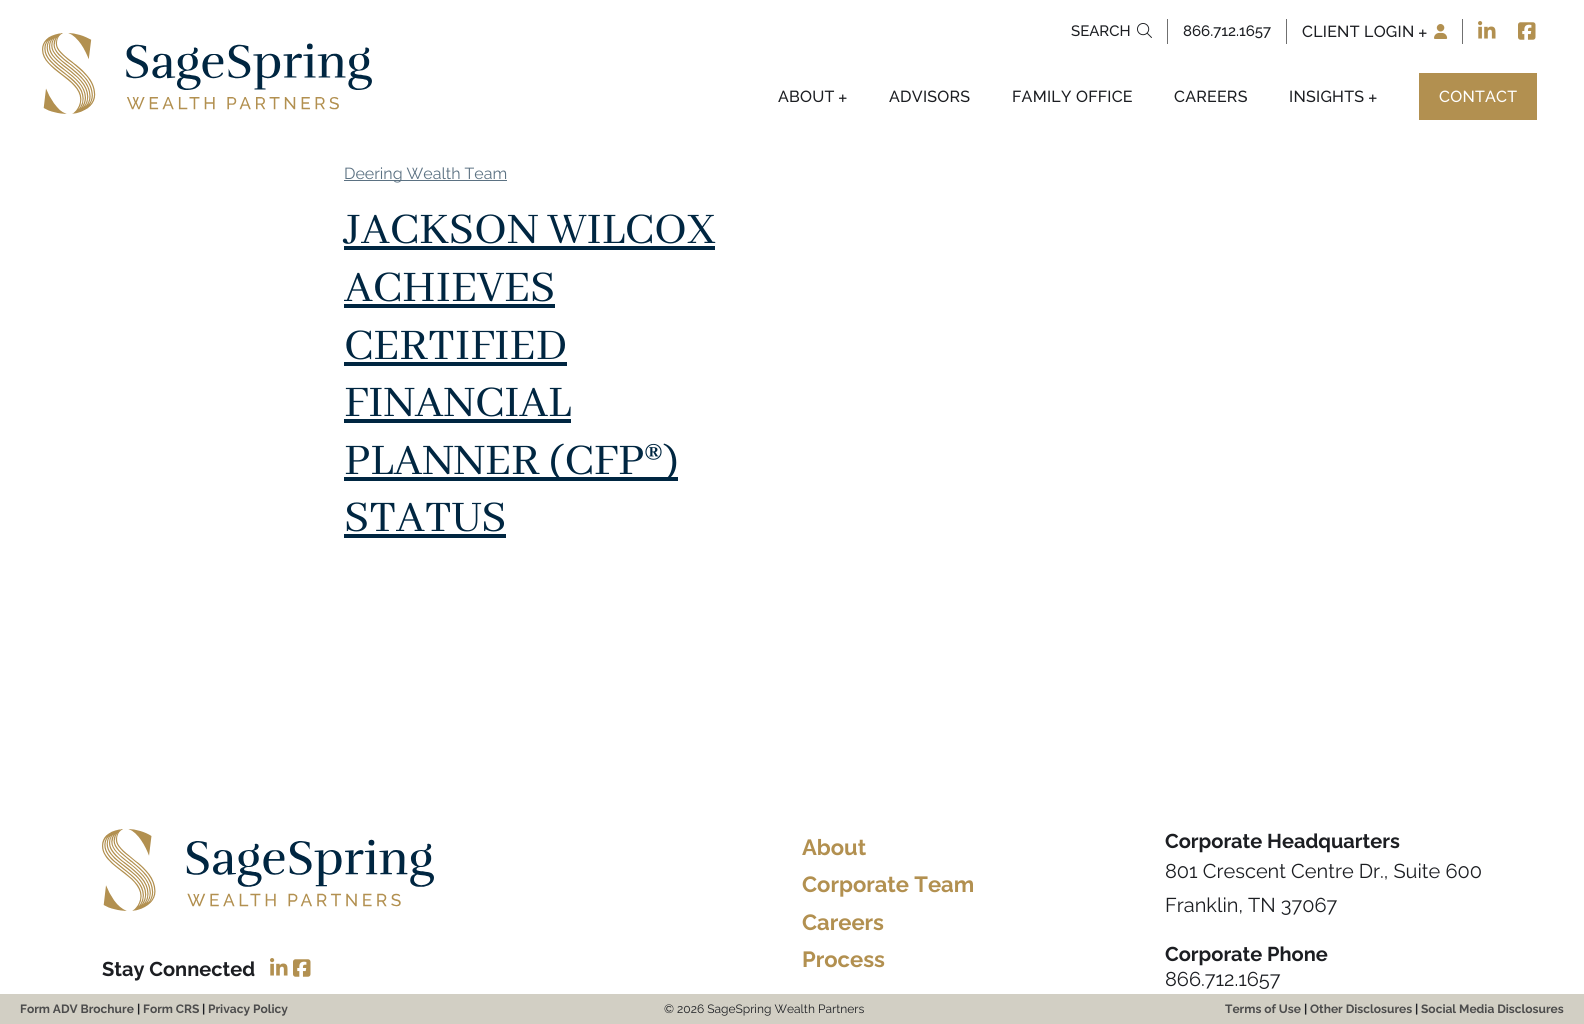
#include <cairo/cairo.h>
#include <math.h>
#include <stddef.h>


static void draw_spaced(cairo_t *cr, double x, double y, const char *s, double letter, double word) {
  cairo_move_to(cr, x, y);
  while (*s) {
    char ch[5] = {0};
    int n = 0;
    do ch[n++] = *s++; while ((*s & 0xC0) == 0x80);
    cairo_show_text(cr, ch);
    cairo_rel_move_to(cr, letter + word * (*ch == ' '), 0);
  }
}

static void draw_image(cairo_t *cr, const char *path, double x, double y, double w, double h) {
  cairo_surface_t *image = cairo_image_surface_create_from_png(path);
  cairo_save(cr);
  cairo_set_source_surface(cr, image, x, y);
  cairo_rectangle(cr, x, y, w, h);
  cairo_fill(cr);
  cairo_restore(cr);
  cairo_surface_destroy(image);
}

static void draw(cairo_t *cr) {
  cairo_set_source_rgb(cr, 1, 1, 1);
  cairo_paint(cr);
  draw_image(cr, "images/1.png", 42, 33, 330, 81);
  draw_image(cr, "images/2.png", 1137, 23, 15, 15);
  cairo_set_source_rgb(cr, 112 / 255.0, 112 / 255.0, 112 / 255.0);
  cairo_rectangle(cr, 1167, 19, 1, 25);
  cairo_fill(cr);
  cairo_rectangle(cr, 1286, 19, 1, 25);
  cairo_fill(cr);
  draw_image(cr, "images/3.png", 1419, 29, 8, 8);
  draw_image(cr, "images/4.png", 1434, 24, 14, 15);
  cairo_rectangle(cr, 1462, 19, 1, 25);
  cairo_fill(cr);
  draw_image(cr, "images/5.png", 1478, 21, 18, 18);
  draw_image(cr, "images/6.png", 1518, 22, 18, 18);
  draw_image(cr, "images/3.png", 839, 94, 8, 8);
  draw_image(cr, "images/3.png", 1369, 94, 8, 8);
  cairo_set_source_rgb(cr, 178 / 255.0, 144 / 255.0, 80 / 255.0);
  cairo_rectangle(cr, 1419, 73, 118, 47);
  cairo_fill(cr);
  cairo_set_source_rgb(cr, 91 / 255.0, 113 / 255.0, 130 / 255.0);
  cairo_rectangle(cr, 344, 180, 163, 1);
  cairo_fill(cr);
  cairo_set_source_rgb(cr, 0, 38 / 255.0, 65 / 255.0);
  cairo_rectangle(cr, 344, 246, 371, 4);
  cairo_fill(cr);
  cairo_rectangle(cr, 344, 304, 211, 4);
  cairo_fill(cr);
  cairo_rectangle(cr, 344, 362, 223, 4);
  cairo_fill(cr);
  cairo_rectangle(cr, 344, 419, 227, 4);
  cairo_fill(cr);
  cairo_rectangle(cr, 344, 477, 334, 4);
  cairo_fill(cr);
  cairo_rectangle(cr, 344, 534, 162, 4);
  cairo_fill(cr);
  draw_image(cr, "images/7.png", 102, 829, 332, 82);
  draw_image(cr, "images/5.png", 270, 958, 18, 18);
  draw_image(cr, "images/6.png", 293, 959, 18, 18);
  cairo_set_source_rgb(cr, 210 / 255.0, 207 / 255.0, 196 / 255.0);
  cairo_rectangle(cr, 0, 994, 1584, 30);
  cairo_fill(cr);
  cairo_select_font_face(cr, "Raleway Medium", CAIRO_FONT_SLANT_NORMAL, CAIRO_FONT_WEIGHT_NORMAL);
  cairo_set_font_size(cr, 15);
  cairo_set_source_rgb(cr, 28 / 255.0, 30 / 255.0, 34 / 255.0);
  cairo_move_to(cr, 1071, 36);
  cairo_show_text(cr, "SEARCH");
  cairo_move_to(cr, 1183, 36);
  cairo_show_text(cr, "866.712.1657");
  cairo_set_font_size(cr, 16);
  draw_spaced(cr, 1302, 37, "CLIENT LOGIN", 0.25, 0);
  draw_spaced(cr, 778, 102, "ABOUT", 0.25, 0);
  draw_spaced(cr, 889, 102, "ADVISORS", 0.25, 0);
  draw_spaced(cr, 1012, 102, "FAMILY OFFICE", 0.25, 0);
  draw_spaced(cr, 1174, 102, "CAREERS", 0.25, 0);
  draw_spaced(cr, 1289, 102, "INSIGHTS", 0.25, 0);
  cairo_set_source_rgb(cr, 1, 1, 1);
  draw_spaced(cr, 1439, 102, "CONTACT", 0.25, 0);
  cairo_select_font_face(cr, "Raleway", CAIRO_FONT_SLANT_NORMAL, CAIRO_FONT_WEIGHT_NORMAL);
  cairo_set_source_rgb(cr, 91 / 255.0, 113 / 255.0, 130 / 255.0);
  cairo_move_to(cr, 344, 179);
  cairo_show_text(cr, "Deering Wealth Team");
  cairo_select_font_face(cr, "Abhaya Libre", CAIRO_FONT_SLANT_NORMAL, CAIRO_FONT_WEIGHT_NORMAL);
  cairo_set_font_size(cr, 48);
  cairo_set_source_rgb(cr, 0, 38 / 255.0, 65 / 255.0);
  cairo_move_to(cr, 344, 243);
  cairo_show_text(cr, "JACKSON WILCOX");
  cairo_move_to(cr, 344, 301);
  cairo_show_text(cr, "ACHIEVES");
  cairo_move_to(cr, 344, 359);
  cairo_show_text(cr, "CERTIFIED");
  cairo_move_to(cr, 344, 416);
  cairo_show_text(cr, "FINANCIAL");
  cairo_move_to(cr, 344, 474);
  cairo_show_text(cr, "PLANNER (CFP®)");
  cairo_move_to(cr, 344, 531);
  cairo_show_text(cr, "STATUS");
  cairo_select_font_face(cr, "Raleway", CAIRO_FONT_SLANT_NORMAL, CAIRO_FONT_WEIGHT_BOLD);
  cairo_set_font_size(cr, 22);
  cairo_set_source_rgb(cr, 178 / 255.0, 144 / 255.0, 80 / 255.0);
  cairo_move_to(cr, 802, 855);
  cairo_show_text(cr, "About");
  cairo_move_to(cr, 802, 892);
  cairo_show_text(cr, "Corporate Team");
  cairo_move_to(cr, 802, 930);
  cairo_show_text(cr, "Careers");
  cairo_move_to(cr, 802, 967);
  cairo_show_text(cr, "Process");
  cairo_set_font_size(cr, 20);
  cairo_set_source_rgb(cr, 28 / 255.0, 30 / 255.0, 34 / 255.0);
  cairo_move_to(cr, 1165, 848);
  cairo_show_text(cr, "Corporate Headquarters");
  cairo_select_font_face(cr, "Raleway", CAIRO_FONT_SLANT_NORMAL, CAIRO_FONT_WEIGHT_NORMAL);
  cairo_move_to(cr, 1165, 878);
  cairo_show_text(cr, "801 Crescent Centre Dr., Suite 600");
  cairo_move_to(cr, 1165, 912);
  cairo_show_text(cr, "Franklin, TN 37067");
  cairo_select_font_face(cr, "Raleway", CAIRO_FONT_SLANT_NORMAL, CAIRO_FONT_WEIGHT_BOLD);
  cairo_move_to(cr, 1165, 961);
  cairo_show_text(cr, "Corporate Phone");
  cairo_select_font_face(cr, "Raleway", CAIRO_FONT_SLANT_NORMAL, CAIRO_FONT_WEIGHT_NORMAL);
  cairo_move_to(cr, 1165, 986);
  cairo_show_text(cr, "866.712.1657");
  cairo_select_font_face(cr, "Raleway", CAIRO_FONT_SLANT_NORMAL, CAIRO_FONT_WEIGHT_BOLD);
  cairo_move_to(cr, 102, 976);
  cairo_show_text(cr, "Stay Connected");
  cairo_set_font_size(cr, 12);
  cairo_set_source_rgb(cr, 76 / 255.0, 76 / 255.0, 76 / 255.0);
  cairo_move_to(cr, 20, 1013);
  cairo_show_text(cr, "Form ADV Brochure");
  cairo_set_source_rgb(cr, 28 / 255.0, 30 / 255.0, 34 / 255.0);
  cairo_move_to(cr, 137, 1013);
  cairo_show_text(cr, "|");
  cairo_set_source_rgb(cr, 76 / 255.0, 76 / 255.0, 76 / 255.0);
  cairo_move_to(cr, 143, 1013);
  cairo_show_text(cr, "Form CRS");
  cairo_set_source_rgb(cr, 28 / 255.0, 30 / 255.0, 34 / 255.0);
  cairo_move_to(cr, 202, 1013);
  cairo_show_text(cr, "|");
  cairo_set_source_rgb(cr, 76 / 255.0, 76 / 255.0, 76 / 255.0);
  cairo_move_to(cr, 208, 1013);
  cairo_show_text(cr, "Privacy Policy");
  cairo_select_font_face(cr, "Raleway", CAIRO_FONT_SLANT_NORMAL, CAIRO_FONT_WEIGHT_NORMAL);
  cairo_set_source_rgb(cr, 28 / 255.0, 30 / 255.0, 34 / 255.0);
  cairo_move_to(cr, 664, 1013);
  cairo_show_text(cr, "© 2026 SageSpring Wealth Partners");
  cairo_select_font_face(cr, "Raleway", CAIRO_FONT_SLANT_NORMAL, CAIRO_FONT_WEIGHT_BOLD);
  cairo_set_source_rgb(cr, 76 / 255.0, 76 / 255.0, 76 / 255.0);
  cairo_move_to(cr, 1225, 1013);
  cairo_show_text(cr, "Terms of Use");
  cairo_set_source_rgb(cr, 28 / 255.0, 30 / 255.0, 34 / 255.0);
  cairo_move_to(cr, 1304, 1013);
  cairo_show_text(cr, "|");
  cairo_set_source_rgb(cr, 76 / 255.0, 76 / 255.0, 76 / 255.0);
  cairo_move_to(cr, 1310, 1013);
  cairo_show_text(cr, "Other Disclosures");
  cairo_set_source_rgb(cr, 28 / 255.0, 30 / 255.0, 34 / 255.0);
  cairo_move_to(cr, 1415, 1013);
  cairo_show_text(cr, "|");
  cairo_set_source_rgb(cr, 76 / 255.0, 76 / 255.0, 76 / 255.0);
  cairo_move_to(cr, 1421, 1013);
  cairo_show_text(cr, "Social Media Disclosures");
}

int main(void) {
  cairo_surface_t *surface = cairo_image_surface_create(CAIRO_FORMAT_RGB24, 1584, 1024);
  cairo_t *cr = cairo_create(surface);
  cairo_font_options_t *options = cairo_font_options_create();
  cairo_font_options_set_hint_metrics(options, CAIRO_HINT_METRICS_OFF);
  cairo_font_options_set_hint_style(options, CAIRO_HINT_STYLE_NONE);
  cairo_set_font_options(cr, options);
  cairo_set_miter_limit(cr, 4);
  draw(cr);
  cairo_surface_write_to_png(surface, "out.png");
  cairo_font_options_destroy(options);
  cairo_destroy(cr);
  cairo_surface_destroy(surface);
  return 0;
}
